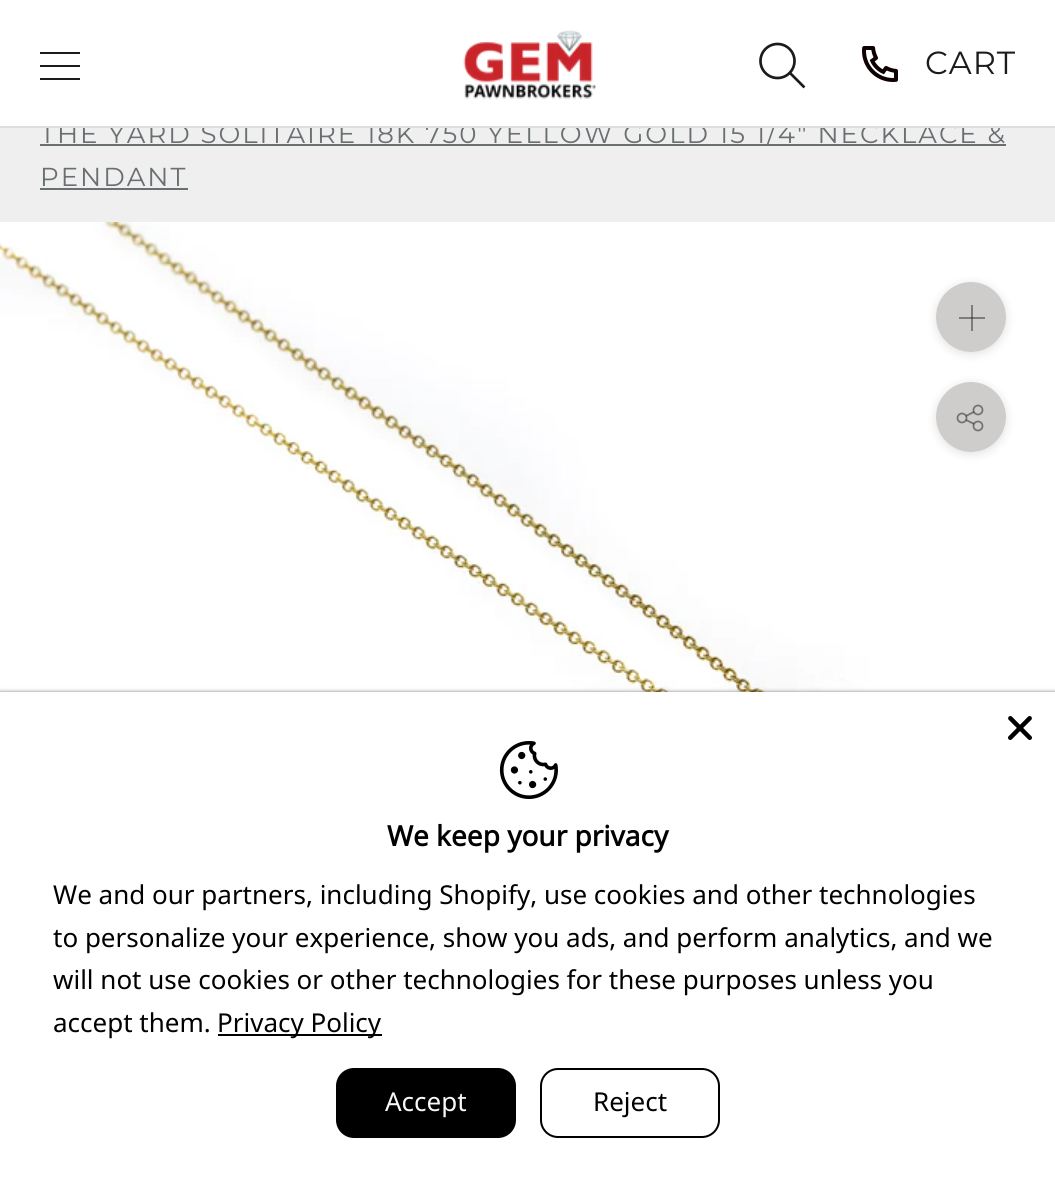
#include <cairo/cairo.h>
#include <math.h>
#include <stddef.h>


static void draw_spaced(cairo_t *cr, double x, double y, const char *s, double letter, double word) {
  cairo_move_to(cr, x, y);
  while (*s) {
    char ch[5] = {0};
    int n = 0;
    do ch[n++] = *s++; while ((*s & 0xC0) == 0x80);
    cairo_show_text(cr, ch);
    cairo_rel_move_to(cr, letter + word * (*ch == ' '), 0);
  }
}

static void rounded_rect(cairo_t *cr, double x, double y, double w, double h, double r) {
  cairo_new_sub_path(cr);
  cairo_arc(cr, x + w - r, y + h - r, r, 0, M_PI / 2);
  cairo_arc(cr, x + r, y + h - r, r, M_PI / 2, M_PI);
  cairo_arc(cr, x + r, y + r, r, M_PI, 1.5 * M_PI);
  cairo_arc(cr, x + w - r, y + r, r, 1.5 * M_PI, 2 * M_PI);
  cairo_close_path(cr);
}

static void draw_shadow(cairo_t *cr, double x, double y, double w, double h, double r, double blur, double alpha) {
  cairo_push_group_with_content(cr, CAIRO_CONTENT_ALPHA);
  cairo_set_operator(cr, CAIRO_OPERATOR_SOURCE);
  for (int i = 15; i >= -15 && fmin(w, h) + blur * i / 3 > 0; i -= 2) {
    double e = blur * i / 6;
    cairo_set_source_rgba(cr, 0, 0, 0, alpha * erfc((i - 1) / 8.5) / 2);
    rounded_rect(cr, x - e, y - e, w + 2 * e, h + 2 * e, fmax(0, fmin(r + e + blur * .6, fmin(w, h) / 2 + e)));
    cairo_fill(cr);
  }
  cairo_pattern_t *soft = cairo_pop_group(cr);
  cairo_mask(cr, soft);
  cairo_pattern_destroy(soft);
}

static void draw_image(cairo_t *cr, const char *path, double x, double y, double w, double h) {
  cairo_surface_t *image = cairo_image_surface_create_from_png(path);
  cairo_save(cr);
  cairo_set_source_surface(cr, image, x, y);
  cairo_rectangle(cr, x, y, w, h);
  cairo_fill(cr);
  cairo_restore(cr);
  cairo_surface_destroy(image);
}

static void draw(cairo_t *cr) {
  cairo_set_source_rgb(cr, 239 / 255.0, 239 / 255.0, 239 / 255.0);
  cairo_paint(cr);
  cairo_set_source_rgb(cr, 106 / 255.0, 112 / 255.0, 114 / 255.0);
  cairo_rectangle(cr, 40, 144, 966, 2);
  cairo_fill(cr);
  cairo_rectangle(cr, 40, 188, 148, 2);
  cairo_fill(cr);
  draw_image(cr, "images/3.png", 0, 222, 1055, 470);
  cairo_save(cr);
  cairo_set_fill_rule(cr, CAIRO_FILL_RULE_EVEN_ODD);
  cairo_new_path(cr);
  cairo_move_to(cr, 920, 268);
  cairo_line_to(cr, 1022, 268);
  cairo_line_to(cr, 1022, 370);
  cairo_line_to(cr, 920, 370);
  cairo_close_path(cr);
  cairo_move_to(cr, 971, 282);
  cairo_curve_to(cr, 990.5, 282, 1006, 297.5, 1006, 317);
  cairo_curve_to(cr, 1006, 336.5, 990.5, 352, 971, 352);
  cairo_curve_to(cr, 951.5, 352, 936, 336.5, 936, 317);
  cairo_curve_to(cr, 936, 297.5, 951.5, 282, 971, 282);
  cairo_close_path(cr);
  cairo_clip(cr);
  cairo_set_source_rgb(cr, 54 / 255.0, 54 / 255.0, 54 / 255.0);
  draw_shadow(cr, 936, 284, 70, 70, 35, 5, 0.15);
  cairo_restore(cr);
  cairo_set_source_rgba(cr, 15 / 255.0, 1 / 255.0, 1 / 255.0, 0.2);
  cairo_arc(cr, 971, 317, 35, 0, 2 * M_PI);
  cairo_fill(cr);
  cairo_set_source_rgb(cr, 126 / 255.0, 124 / 255.0, 124 / 255.0);
  cairo_rectangle(cr, 971, 305, 2, 26);
  cairo_fill(cr);
  cairo_set_source_rgba(cr, 28 / 255.0, 27 / 255.0, 27 / 255.0, 0.45);
  cairo_rectangle(cr, 959, 317, 26, 2);
  cairo_fill(cr);
  cairo_save(cr);
  cairo_set_fill_rule(cr, CAIRO_FILL_RULE_EVEN_ODD);
  cairo_new_path(cr);
  cairo_move_to(cr, 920, 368);
  cairo_line_to(cr, 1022, 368);
  cairo_line_to(cr, 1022, 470);
  cairo_line_to(cr, 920, 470);
  cairo_close_path(cr);
  cairo_move_to(cr, 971, 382);
  cairo_curve_to(cr, 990.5, 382, 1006, 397.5, 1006, 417);
  cairo_curve_to(cr, 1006, 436.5, 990.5, 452, 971, 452);
  cairo_curve_to(cr, 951.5, 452, 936, 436.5, 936, 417);
  cairo_curve_to(cr, 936, 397.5, 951.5, 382, 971, 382);
  cairo_close_path(cr);
  cairo_clip(cr);
  cairo_set_source_rgb(cr, 54 / 255.0, 54 / 255.0, 54 / 255.0);
  draw_shadow(cr, 936, 384, 70, 70, 35, 5, 0.15);
  cairo_restore(cr);
  cairo_set_source_rgba(cr, 15 / 255.0, 1 / 255.0, 1 / 255.0, 0.2);
  cairo_arc(cr, 971, 417, 35, 0, 2 * M_PI);
  cairo_fill(cr);
  draw_image(cr, "images/4.png", 956, 404, 28, 28);
  cairo_set_source_rgb(cr, 0, 0, 0);
  draw_shadow(cr, 0, 692, 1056, 512, 0, 2, 0.5);
  cairo_set_source_rgb(cr, 1, 1, 1);
  cairo_rectangle(cr, 0, 692, 1055, 512);
  cairo_fill(cr);
  draw_image(cr, "images/5.png", 1008, 716, 24, 24);
  draw_image(cr, "images/6.png", 499, 741, 59, 58);
  cairo_set_source_rgb(cr, 0, 0, 0);
  cairo_rectangle(cr, 218, 1034, 164, 2);
  cairo_fill(cr);
  rounded_rect(cr, 336, 1068, 180, 70, 18);
  cairo_fill(cr);
  rounded_rect(cr, 541, 1069, 178, 68, 17);
  cairo_stroke(cr);
  cairo_select_font_face(cr, "Montserrat Thin", CAIRO_FONT_SLANT_NORMAL, CAIRO_FONT_WEIGHT_NORMAL);
  cairo_set_font_size(cr, 26);
  cairo_set_source_rgb(cr, 106 / 255.0, 112 / 255.0, 114 / 255.0);
  draw_spaced(cr, 40, 143, "THE YARD SOLITAIRE 18K 750 YELLOW GOLD 15 1/4\" NECKLACE &", 2, 0);
  cairo_set_source_rgb(cr, 1, 1, 1);
  cairo_rectangle(cr, 0, 0, 1055, 126);
  cairo_fill(cr);
  draw_image(cr, "images/2.png", 862, 46, 36, 36);
  cairo_new_path(cr);
  cairo_move_to(cr, 803.5, 86.5);
  cairo_line_to(cr, 790, 73);
  cairo_set_source_rgb(cr, 28 / 255.0, 27 / 255.0, 27 / 255.0);
  cairo_set_line_width(cr, 2.7);
  cairo_set_line_cap(cr, CAIRO_LINE_CAP_SQUARE);
  cairo_stroke(cr);
  cairo_arc(cr, 777.5, 61, 17, 0, 2 * M_PI);
  cairo_set_line_cap(cr, CAIRO_LINE_CAP_BUTT);
  cairo_stroke(cr);
  cairo_set_font_size(cr, 32);
  draw_spaced(cr, 925, 74, "CART", 1, 0);
  draw_image(cr, "images/1.png", 463, 30, 133, 70);
  cairo_new_path(cr);
  cairo_move_to(cr, 40, 80);
  cairo_line_to(cr, 40, 78);
  cairo_line_to(cr, 80, 78);
  cairo_line_to(cr, 80, 80);
  cairo_close_path(cr);
  cairo_move_to(cr, 40, 65);
  cairo_line_to(cr, 80, 65);
  cairo_line_to(cr, 80, 67);
  cairo_line_to(cr, 40, 67);
  cairo_close_path(cr);
  cairo_move_to(cr, 40, 52);
  cairo_line_to(cr, 80, 52);
  cairo_line_to(cr, 80, 54);
  cairo_line_to(cr, 40, 54);
  cairo_close_path(cr);
  cairo_fill(cr);
  cairo_set_source_rgb(cr, 221 / 255.0, 221 / 255.0, 221 / 255.0);
  cairo_rectangle(cr, 0, 126, 1055, 2);
  cairo_fill(cr);
  cairo_set_font_size(cr, 26);
  cairo_set_source_rgb(cr, 106 / 255.0, 112 / 255.0, 114 / 255.0);
  draw_spaced(cr, 40, 186, "PENDANT", 2, 0);
  cairo_select_font_face(cr, "Noto Sans", CAIRO_FONT_SLANT_NORMAL, CAIRO_FONT_WEIGHT_BOLD);
  cairo_set_font_size(cr, 28);
  cairo_set_source_rgb(cr, 0, 0, 0);
  cairo_move_to(cr, 387, 846);
  cairo_show_text(cr, "We keep your privacy");
  cairo_select_font_face(cr, "Noto Sans", CAIRO_FONT_SLANT_NORMAL, CAIRO_FONT_WEIGHT_NORMAL);
  cairo_set_font_size(cr, 26);
  cairo_move_to(cr, 53, 904);
  cairo_show_text(cr, "We and our partners, including Shopify, use cookies and other technologies");
  cairo_move_to(cr, 53, 947);
  cairo_show_text(cr, "to personalize your experience, show you ads, and perform analytics, and we");
  cairo_move_to(cr, 53, 989);
  cairo_show_text(cr, "will not use cookies or other technologies for these purposes unless you");
  cairo_move_to(cr, 53, 1032);
  cairo_show_text(cr, "accept them.");
  cairo_move_to(cr, 217, 1032);
  cairo_show_text(cr, "Privacy Policy");
  cairo_set_source_rgb(cr, 248 / 255.0, 248 / 255.0, 248 / 255.0);
  cairo_move_to(cr, 385, 1111);
  cairo_show_text(cr, "Accept");
  cairo_set_source_rgb(cr, 0, 0, 0);
  cairo_move_to(cr, 593, 1111);
  cairo_show_text(cr, "Reject");
}

int main(void) {
  cairo_surface_t *surface = cairo_image_surface_create(CAIRO_FORMAT_RGB24, 1055, 1204);
  cairo_t *cr = cairo_create(surface);
  cairo_font_options_t *options = cairo_font_options_create();
  cairo_font_options_set_hint_metrics(options, CAIRO_HINT_METRICS_OFF);
  cairo_font_options_set_hint_style(options, CAIRO_HINT_STYLE_NONE);
  cairo_set_font_options(cr, options);
  cairo_set_miter_limit(cr, 4);
  draw(cr);
  cairo_surface_write_to_png(surface, "out.png");
  cairo_font_options_destroy(options);
  cairo_destroy(cr);
  cairo_surface_destroy(surface);
  return 0;
}
